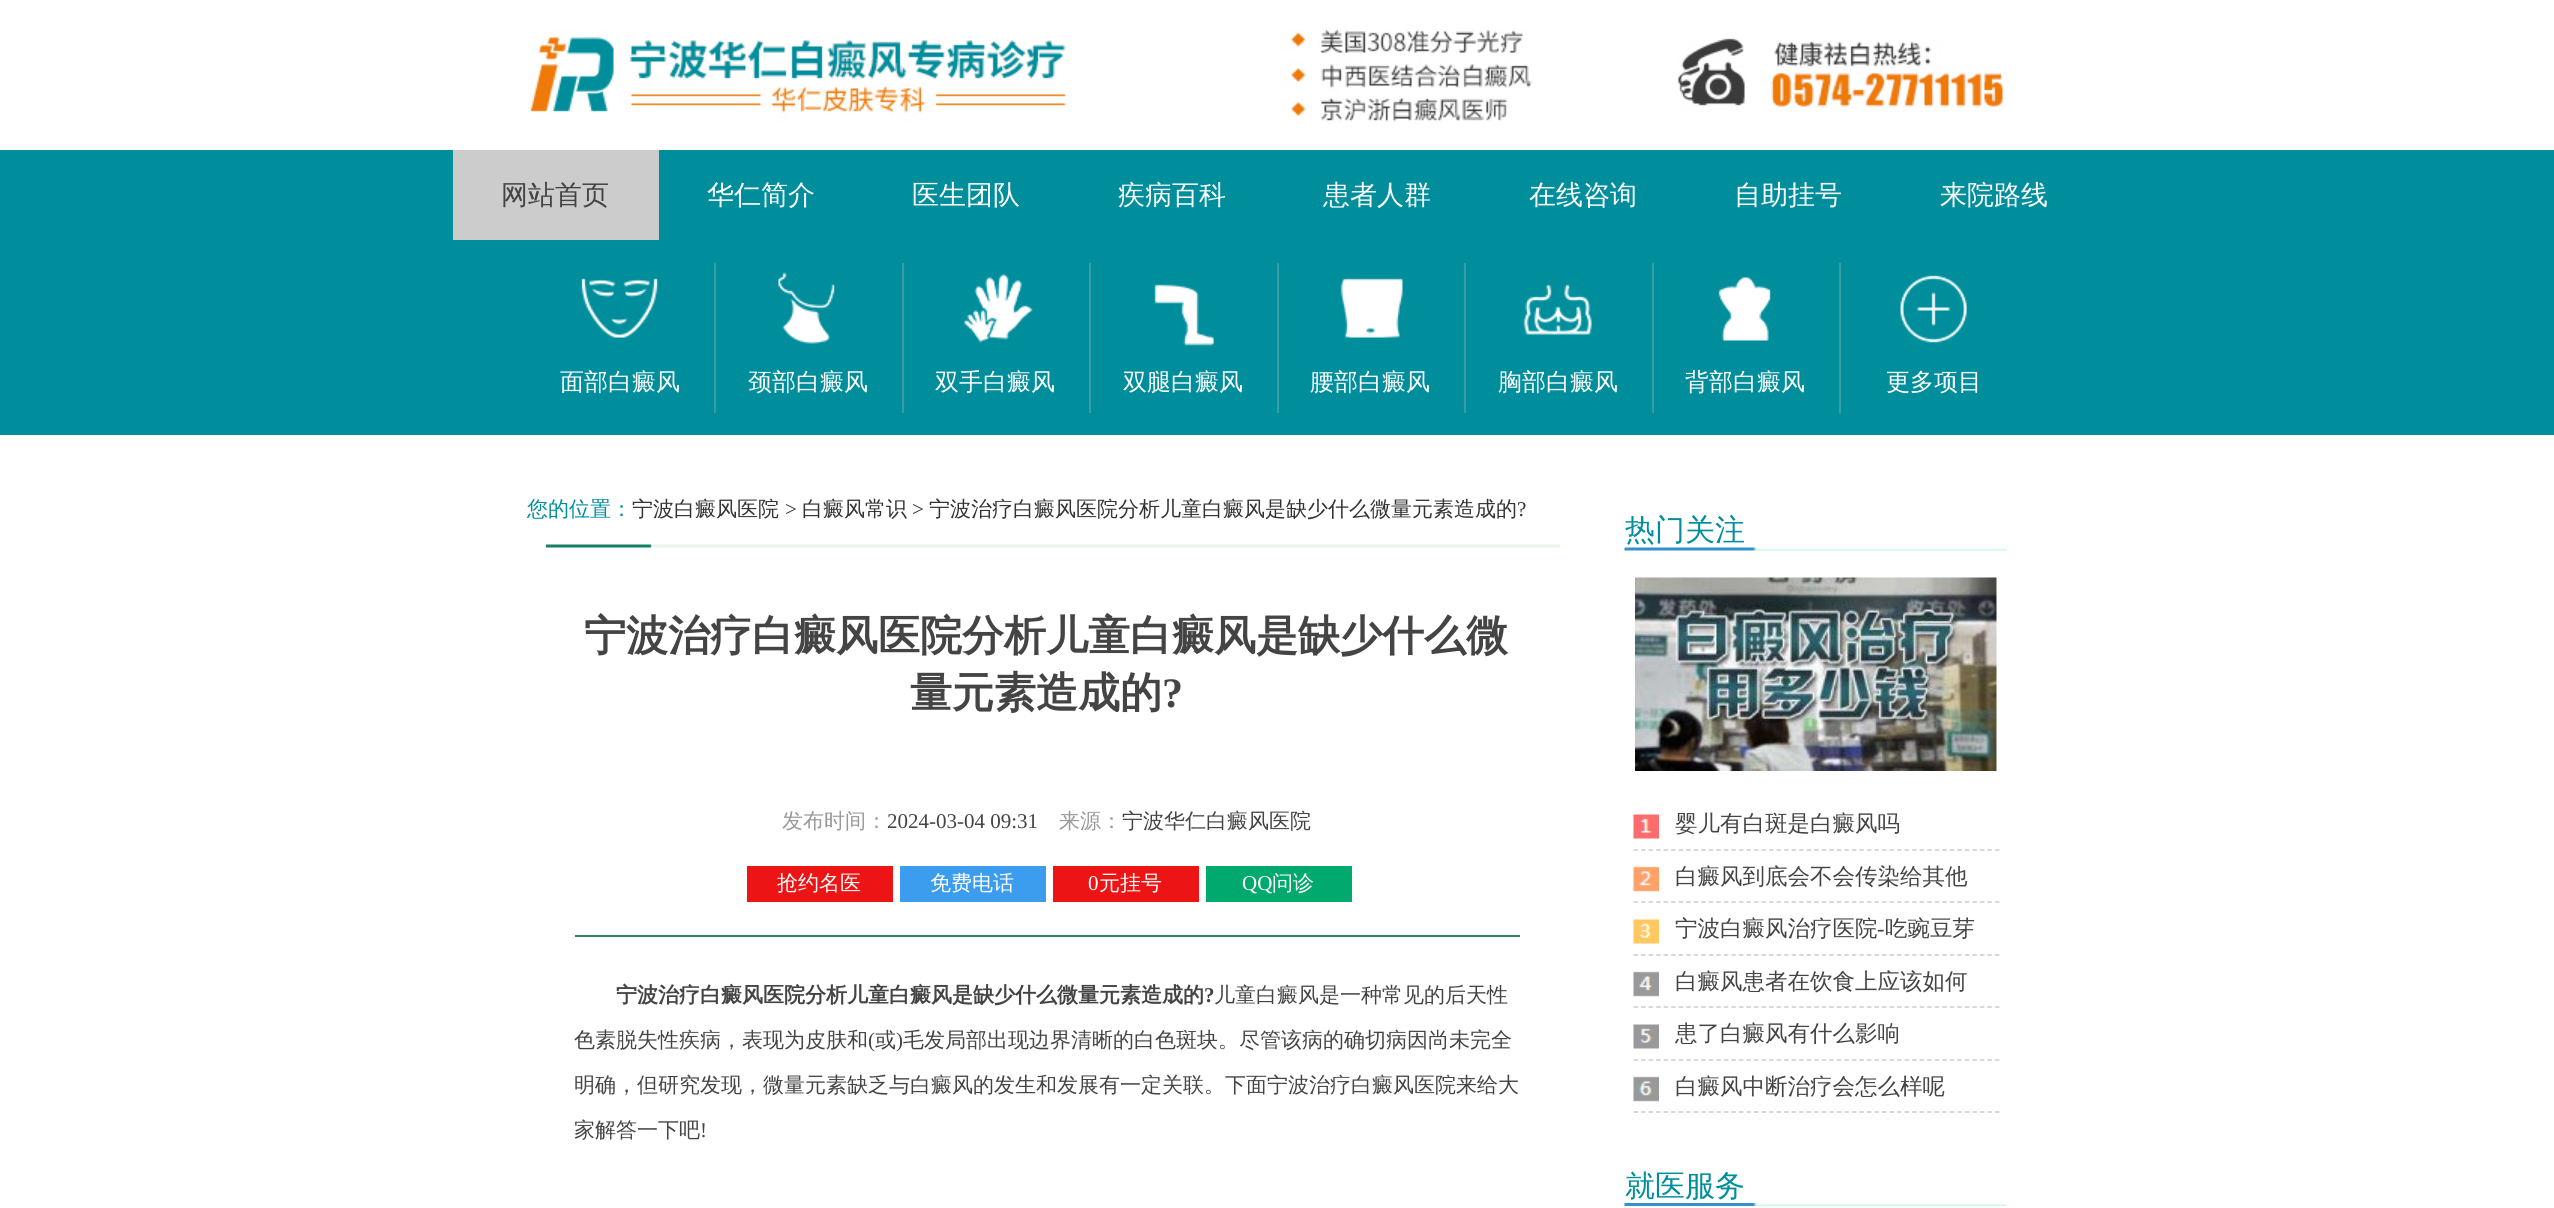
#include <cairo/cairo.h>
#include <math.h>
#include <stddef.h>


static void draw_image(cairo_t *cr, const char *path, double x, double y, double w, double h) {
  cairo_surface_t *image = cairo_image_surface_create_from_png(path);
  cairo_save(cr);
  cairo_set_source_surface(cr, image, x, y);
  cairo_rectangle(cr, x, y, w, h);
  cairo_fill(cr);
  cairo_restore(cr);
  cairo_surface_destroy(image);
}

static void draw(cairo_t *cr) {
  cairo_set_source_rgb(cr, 1, 1, 1);
  cairo_paint(cr);
  draw_image(cr, "images/1.png", 530, 29, 1473, 93);
  cairo_set_source_rgb(cr, 0, 142 / 255.0, 156 / 255.0);
  cairo_rectangle(cr, 0, 150, 2554, 285);
  cairo_fill(cr);
  cairo_set_source_rgb(cr, 204 / 255.0, 204 / 255.0, 204 / 255.0);
  cairo_rectangle(cr, 453, 150, 206, 90);
  cairo_fill(cr);
  cairo_set_source_rgb(cr, 57 / 255.0, 157 / 255.0, 167 / 255.0);
  cairo_rectangle(cr, 714, 263, 2, 150);
  cairo_fill(cr);
  draw_image(cr, "images/2.png", 581, 278, 77, 60);
  cairo_rectangle(cr, 902, 263, 2, 150);
  cairo_fill(cr);
  draw_image(cr, "images/3.png", 778, 272, 57, 72);
  cairo_rectangle(cr, 1089, 263, 2, 150);
  cairo_fill(cr);
  draw_image(cr, "images/4.png", 964, 274, 69, 69);
  cairo_rectangle(cr, 1277, 263, 2, 150);
  cairo_fill(cr);
  draw_image(cr, "images/5.png", 1154, 284, 60, 62);
  cairo_rectangle(cr, 1464, 263, 2, 150);
  cairo_fill(cr);
  draw_image(cr, "images/6.png", 1340, 278, 63, 60);
  cairo_rectangle(cr, 1652, 263, 2, 150);
  cairo_fill(cr);
  draw_image(cr, "images/7.png", 1523, 284, 69, 51);
  cairo_rectangle(cr, 1839, 263, 2, 150);
  cairo_fill(cr);
  draw_image(cr, "images/8.png", 1718, 277, 53, 64);
  draw_image(cr, "images/9.png", 1900, 275, 67, 68);
  draw_image(cr, "images/10.png", 546, 544, 1014, 4);
  cairo_set_source_rgb(cr, 54 / 255.0, 126 / 255.0, 89 / 255.0);
  cairo_rectangle(cr, 575, 935, 945, 2);
  cairo_fill(cr);
  cairo_set_source_rgb(cr, 236 / 255.0, 20 / 255.0, 20 / 255.0);
  cairo_rectangle(cr, 747, 866, 146, 36);
  cairo_fill(cr);
  cairo_set_source_rgb(cr, 60 / 255.0, 156 / 255.0, 237 / 255.0);
  cairo_rectangle(cr, 900, 866, 146, 36);
  cairo_fill(cr);
  cairo_set_source_rgb(cr, 236 / 255.0, 20 / 255.0, 20 / 255.0);
  cairo_rectangle(cr, 1053, 866, 146, 36);
  cairo_fill(cr);
  cairo_set_source_rgb(cr, 0, 169 / 255.0, 110 / 255.0);
  cairo_rectangle(cr, 1206, 866, 146, 36);
  cairo_fill(cr);
  draw_image(cr, "images/11.png", 1624, 547, 383, 4);
  draw_image(cr, "images/12.png", 1635, 577, 362, 194);
  draw_image(cr, "images/13.png", 1633, 814, 26, 288);
  cairo_new_path(cr);
  cairo_move_to(cr, 1633.5, 850);
  cairo_line_to(cr, 1999.5, 850);
  cairo_set_source_rgb(cr, 204 / 255.0, 204 / 255.0, 204 / 255.0);
  cairo_set_line_width(cr, 1.5);
  cairo_set_dash(cr, (double[]){4.5, 3.03}, 2, 0);
  cairo_stroke(cr);
  cairo_new_path(cr);
  cairo_move_to(cr, 1633.5, 902);
  cairo_line_to(cr, 1999.5, 902);
  cairo_stroke(cr);
  cairo_new_path(cr);
  cairo_move_to(cr, 1633.5, 955);
  cairo_line_to(cr, 1999.5, 955);
  cairo_stroke(cr);
  cairo_new_path(cr);
  cairo_move_to(cr, 1633.5, 1007);
  cairo_line_to(cr, 1999.5, 1007);
  cairo_stroke(cr);
  cairo_new_path(cr);
  cairo_move_to(cr, 1633.5, 1060);
  cairo_line_to(cr, 1999.5, 1060);
  cairo_stroke(cr);
  cairo_new_path(cr);
  cairo_move_to(cr, 1633.5, 1112);
  cairo_line_to(cr, 1999.5, 1112);
  cairo_stroke(cr);
  draw_image(cr, "images/14.png", 1624, 1203, 383, 3);
  cairo_select_font_face(cr, "WenQuanYi Zen Hei Medium", CAIRO_FONT_SLANT_NORMAL, CAIRO_FONT_WEIGHT_NORMAL);
  cairo_set_font_size(cr, 27);
  cairo_set_source_rgb(cr, 68 / 255.0, 68 / 255.0, 68 / 255.0);
  cairo_move_to(cr, 501, 204);
  cairo_show_text(cr, "网站首页");
  cairo_set_source_rgb(cr, 1, 1, 1);
  cairo_move_to(cr, 707, 204);
  cairo_show_text(cr, "华仁简介");
  cairo_move_to(cr, 912, 204);
  cairo_show_text(cr, "医生团队");
  cairo_move_to(cr, 1118, 204);
  cairo_show_text(cr, "疾病百科");
  cairo_move_to(cr, 1323, 204);
  cairo_show_text(cr, "患者人群");
  cairo_move_to(cr, 1529, 204);
  cairo_show_text(cr, "在线咨询");
  cairo_move_to(cr, 1734, 204);
  cairo_show_text(cr, "自助挂号");
  cairo_move_to(cr, 1940, 204);
  cairo_show_text(cr, "来院路线");
  cairo_set_font_size(cr, 24);
  cairo_move_to(cr, 560, 390);
  cairo_show_text(cr, "面部白癜风");
  cairo_move_to(cr, 748, 390);
  cairo_show_text(cr, "颈部白癜风");
  cairo_move_to(cr, 935, 390);
  cairo_show_text(cr, "双手白癜风");
  cairo_move_to(cr, 1123, 390);
  cairo_show_text(cr, "双腿白癜风");
  cairo_move_to(cr, 1310, 390);
  cairo_show_text(cr, "腰部白癜风");
  cairo_move_to(cr, 1498, 390);
  cairo_show_text(cr, "胸部白癜风");
  cairo_move_to(cr, 1685, 390);
  cairo_show_text(cr, "背部白癜风");
  cairo_move_to(cr, 1886, 390);
  cairo_show_text(cr, "更多项目");
  cairo_set_font_size(cr, 21);
  cairo_set_source_rgb(cr, 0, 142 / 255.0, 156 / 255.0);
  cairo_move_to(cr, 527, 516);
  cairo_show_text(cr, "您的位置：");
  cairo_set_source_rgb(cr, 51 / 255.0, 51 / 255.0, 51 / 255.0);
  cairo_move_to(cr, 632, 516);
  cairo_show_text(cr, "宁波白癜风医院");
  cairo_select_font_face(cr, "Liberation Serif", CAIRO_FONT_SLANT_NORMAL, CAIRO_FONT_WEIGHT_NORMAL);
  cairo_move_to(cr, 785, 516);
  cairo_show_text(cr, ">");
  cairo_select_font_face(cr, "WenQuanYi Zen Hei Medium", CAIRO_FONT_SLANT_NORMAL, CAIRO_FONT_WEIGHT_NORMAL);
  cairo_move_to(cr, 802, 516);
  cairo_show_text(cr, "白癜风常识");
  cairo_select_font_face(cr, "Liberation Serif", CAIRO_FONT_SLANT_NORMAL, CAIRO_FONT_WEIGHT_NORMAL);
  cairo_move_to(cr, 912, 516);
  cairo_show_text(cr, ">");
  cairo_select_font_face(cr, "WenQuanYi Zen Hei Medium", CAIRO_FONT_SLANT_NORMAL, CAIRO_FONT_WEIGHT_NORMAL);
  cairo_move_to(cr, 929, 516);
  cairo_show_text(cr, "宁波治疗白癜风医院分析儿童白癜风是缺少什么微量元素造成的");
  cairo_select_font_face(cr, "Liberation Serif", CAIRO_FONT_SLANT_NORMAL, CAIRO_FONT_WEIGHT_NORMAL);
  cairo_move_to(cr, 1517, 516);
  cairo_show_text(cr, "?");
  cairo_select_font_face(cr, "WenQuanYi Zen Hei", CAIRO_FONT_SLANT_NORMAL, CAIRO_FONT_WEIGHT_BOLD);
  cairo_set_font_size(cr, 42);
  cairo_set_source_rgb(cr, 68 / 255.0, 68 / 255.0, 68 / 255.0);
  cairo_move_to(cr, 584, 650);
  cairo_show_text(cr, "宁波治疗白癜风医院分析儿童白癜风是缺少什么微");
  cairo_move_to(cr, 910, 707);
  cairo_show_text(cr, "量元素造成的");
  cairo_select_font_face(cr, "Liberation Serif", CAIRO_FONT_SLANT_NORMAL, CAIRO_FONT_WEIGHT_BOLD);
  cairo_move_to(cr, 1162, 707);
  cairo_show_text(cr, "?");
  cairo_select_font_face(cr, "WenQuanYi Zen Hei Medium", CAIRO_FONT_SLANT_NORMAL, CAIRO_FONT_WEIGHT_NORMAL);
  cairo_set_font_size(cr, 21);
  cairo_set_source_rgb(cr, 153 / 255.0, 153 / 255.0, 153 / 255.0);
  cairo_move_to(cr, 782, 828);
  cairo_show_text(cr, "发布时间：");
  cairo_select_font_face(cr, "Liberation Serif", CAIRO_FONT_SLANT_NORMAL, CAIRO_FONT_WEIGHT_NORMAL);
  cairo_set_source_rgb(cr, 68 / 255.0, 68 / 255.0, 68 / 255.0);
  cairo_move_to(cr, 887, 828);
  cairo_show_text(cr, "2024-03-04 09:31");
  cairo_select_font_face(cr, "WenQuanYi Zen Hei Medium", CAIRO_FONT_SLANT_NORMAL, CAIRO_FONT_WEIGHT_NORMAL);
  cairo_set_source_rgb(cr, 153 / 255.0, 153 / 255.0, 153 / 255.0);
  cairo_move_to(cr, 1059, 828);
  cairo_show_text(cr, "来源：");
  cairo_set_source_rgb(cr, 68 / 255.0, 68 / 255.0, 68 / 255.0);
  cairo_move_to(cr, 1122, 828);
  cairo_show_text(cr, "宁波华仁白癜风医院");
  cairo_set_source_rgb(cr, 1, 1, 1);
  cairo_move_to(cr, 777, 890);
  cairo_show_text(cr, "抢约名医");
  cairo_move_to(cr, 930, 890);
  cairo_show_text(cr, "免费电话");
  cairo_select_font_face(cr, "Liberation Serif", CAIRO_FONT_SLANT_NORMAL, CAIRO_FONT_WEIGHT_NORMAL);
  cairo_move_to(cr, 1088, 890);
  cairo_show_text(cr, "0");
  cairo_select_font_face(cr, "WenQuanYi Zen Hei Medium", CAIRO_FONT_SLANT_NORMAL, CAIRO_FONT_WEIGHT_NORMAL);
  cairo_move_to(cr, 1099, 890);
  cairo_show_text(cr, "元挂号");
  cairo_select_font_face(cr, "Liberation Serif", CAIRO_FONT_SLANT_NORMAL, CAIRO_FONT_WEIGHT_NORMAL);
  cairo_move_to(cr, 1242, 890);
  cairo_show_text(cr, "QQ");
  cairo_select_font_face(cr, "WenQuanYi Zen Hei Medium", CAIRO_FONT_SLANT_NORMAL, CAIRO_FONT_WEIGHT_NORMAL);
  cairo_move_to(cr, 1272, 890);
  cairo_show_text(cr, "问诊");
  cairo_select_font_face(cr, "WenQuanYi Zen Hei", CAIRO_FONT_SLANT_NORMAL, CAIRO_FONT_WEIGHT_BOLD);
  cairo_set_source_rgb(cr, 68 / 255.0, 68 / 255.0, 68 / 255.0);
  cairo_move_to(cr, 616, 1002);
  cairo_show_text(cr, "宁波治疗白癜风医院分析儿童白癜风是缺少什么微量元素造成的");
  cairo_select_font_face(cr, "Liberation Serif", CAIRO_FONT_SLANT_NORMAL, CAIRO_FONT_WEIGHT_BOLD);
  cairo_move_to(cr, 1204, 1002);
  cairo_show_text(cr, "?");
  cairo_select_font_face(cr, "WenQuanYi Zen Hei Medium", CAIRO_FONT_SLANT_NORMAL, CAIRO_FONT_WEIGHT_NORMAL);
  cairo_move_to(cr, 1214, 1002);
  cairo_show_text(cr, "儿童白癜风是一种常见的后天性");
  cairo_move_to(cr, 574, 1047);
  cairo_show_text(cr, "色素脱失性疾病，表现为皮肤和");
  cairo_select_font_face(cr, "Liberation Serif", CAIRO_FONT_SLANT_NORMAL, CAIRO_FONT_WEIGHT_NORMAL);
  cairo_move_to(cr, 868, 1047);
  cairo_show_text(cr, "(");
  cairo_select_font_face(cr, "WenQuanYi Zen Hei Medium", CAIRO_FONT_SLANT_NORMAL, CAIRO_FONT_WEIGHT_NORMAL);
  cairo_move_to(cr, 875, 1047);
  cairo_show_text(cr, "或");
  cairo_select_font_face(cr, "Liberation Serif", CAIRO_FONT_SLANT_NORMAL, CAIRO_FONT_WEIGHT_NORMAL);
  cairo_move_to(cr, 896, 1047);
  cairo_show_text(cr, ")");
  cairo_select_font_face(cr, "WenQuanYi Zen Hei Medium", CAIRO_FONT_SLANT_NORMAL, CAIRO_FONT_WEIGHT_NORMAL);
  cairo_move_to(cr, 903, 1047);
  cairo_show_text(cr, "毛发局部出现边界清晰的白色斑块。尽管该病的确切病因尚未完全");
  cairo_move_to(cr, 574, 1092);
  cairo_show_text(cr, "明确，但研究发现，微量元素缺乏与白癜风的发生和发展有一定关联。下面宁波治疗白癜风医院来给大");
  cairo_save(cr);
  cairo_rectangle(cr, 575, 548, 957, 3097);
  cairo_clip(cr);
  cairo_move_to(cr, 574, 1137);
  cairo_show_text(cr, "家解答一下吧");
  cairo_restore(cr);
  cairo_select_font_face(cr, "Liberation Serif", CAIRO_FONT_SLANT_NORMAL, CAIRO_FONT_WEIGHT_NORMAL);
  cairo_move_to(cr, 700, 1137);
  cairo_show_text(cr, "!");
  cairo_select_font_face(cr, "WenQuanYi Zen Hei Medium", CAIRO_FONT_SLANT_NORMAL, CAIRO_FONT_WEIGHT_NORMAL);
  cairo_set_font_size(cr, 30);
  cairo_set_source_rgb(cr, 0, 142 / 255.0, 156 / 255.0);
  cairo_move_to(cr, 1625, 540);
  cairo_show_text(cr, "热门关注");
  cairo_set_font_size(cr, 22.5);
  cairo_set_source_rgb(cr, 68 / 255.0, 68 / 255.0, 68 / 255.0);
  cairo_move_to(cr, 1675, 831);
  cairo_show_text(cr, "婴儿有白斑是白癜风吗");
  cairo_move_to(cr, 1675, 884);
  cairo_show_text(cr, "白癜风到底会不会传染给其他");
  cairo_move_to(cr, 1675, 936);
  cairo_show_text(cr, "宁波白癜风治疗医院");
  cairo_select_font_face(cr, "Liberation Serif", CAIRO_FONT_SLANT_NORMAL, CAIRO_FONT_WEIGHT_NORMAL);
  cairo_move_to(cr, 1877, 936);
  cairo_show_text(cr, "-");
  cairo_select_font_face(cr, "WenQuanYi Zen Hei Medium", CAIRO_FONT_SLANT_NORMAL, CAIRO_FONT_WEIGHT_NORMAL);
  cairo_move_to(cr, 1885, 936);
  cairo_show_text(cr, "吃豌豆芽");
  cairo_move_to(cr, 1675, 989);
  cairo_show_text(cr, "白癜风患者在饮食上应该如何");
  cairo_move_to(cr, 1675, 1041);
  cairo_show_text(cr, "患了白癜风有什么影响");
  cairo_move_to(cr, 1675, 1094);
  cairo_show_text(cr, "白癜风中断治疗会怎么样呢");
  cairo_set_font_size(cr, 30);
  cairo_set_source_rgb(cr, 0, 142 / 255.0, 156 / 255.0);
  cairo_move_to(cr, 1625, 1196);
  cairo_show_text(cr, "就医服务");
}

int main(void) {
  cairo_surface_t *surface = cairo_image_surface_create(CAIRO_FORMAT_RGB24, 2554, 1208);
  cairo_t *cr = cairo_create(surface);
  cairo_font_options_t *options = cairo_font_options_create();
  cairo_font_options_set_hint_metrics(options, CAIRO_HINT_METRICS_OFF);
  cairo_font_options_set_hint_style(options, CAIRO_HINT_STYLE_NONE);
  cairo_set_font_options(cr, options);
  cairo_set_miter_limit(cr, 4);
  draw(cr);
  cairo_surface_write_to_png(surface, "out.png");
  cairo_font_options_destroy(options);
  cairo_destroy(cr);
  cairo_surface_destroy(surface);
  return 0;
}
